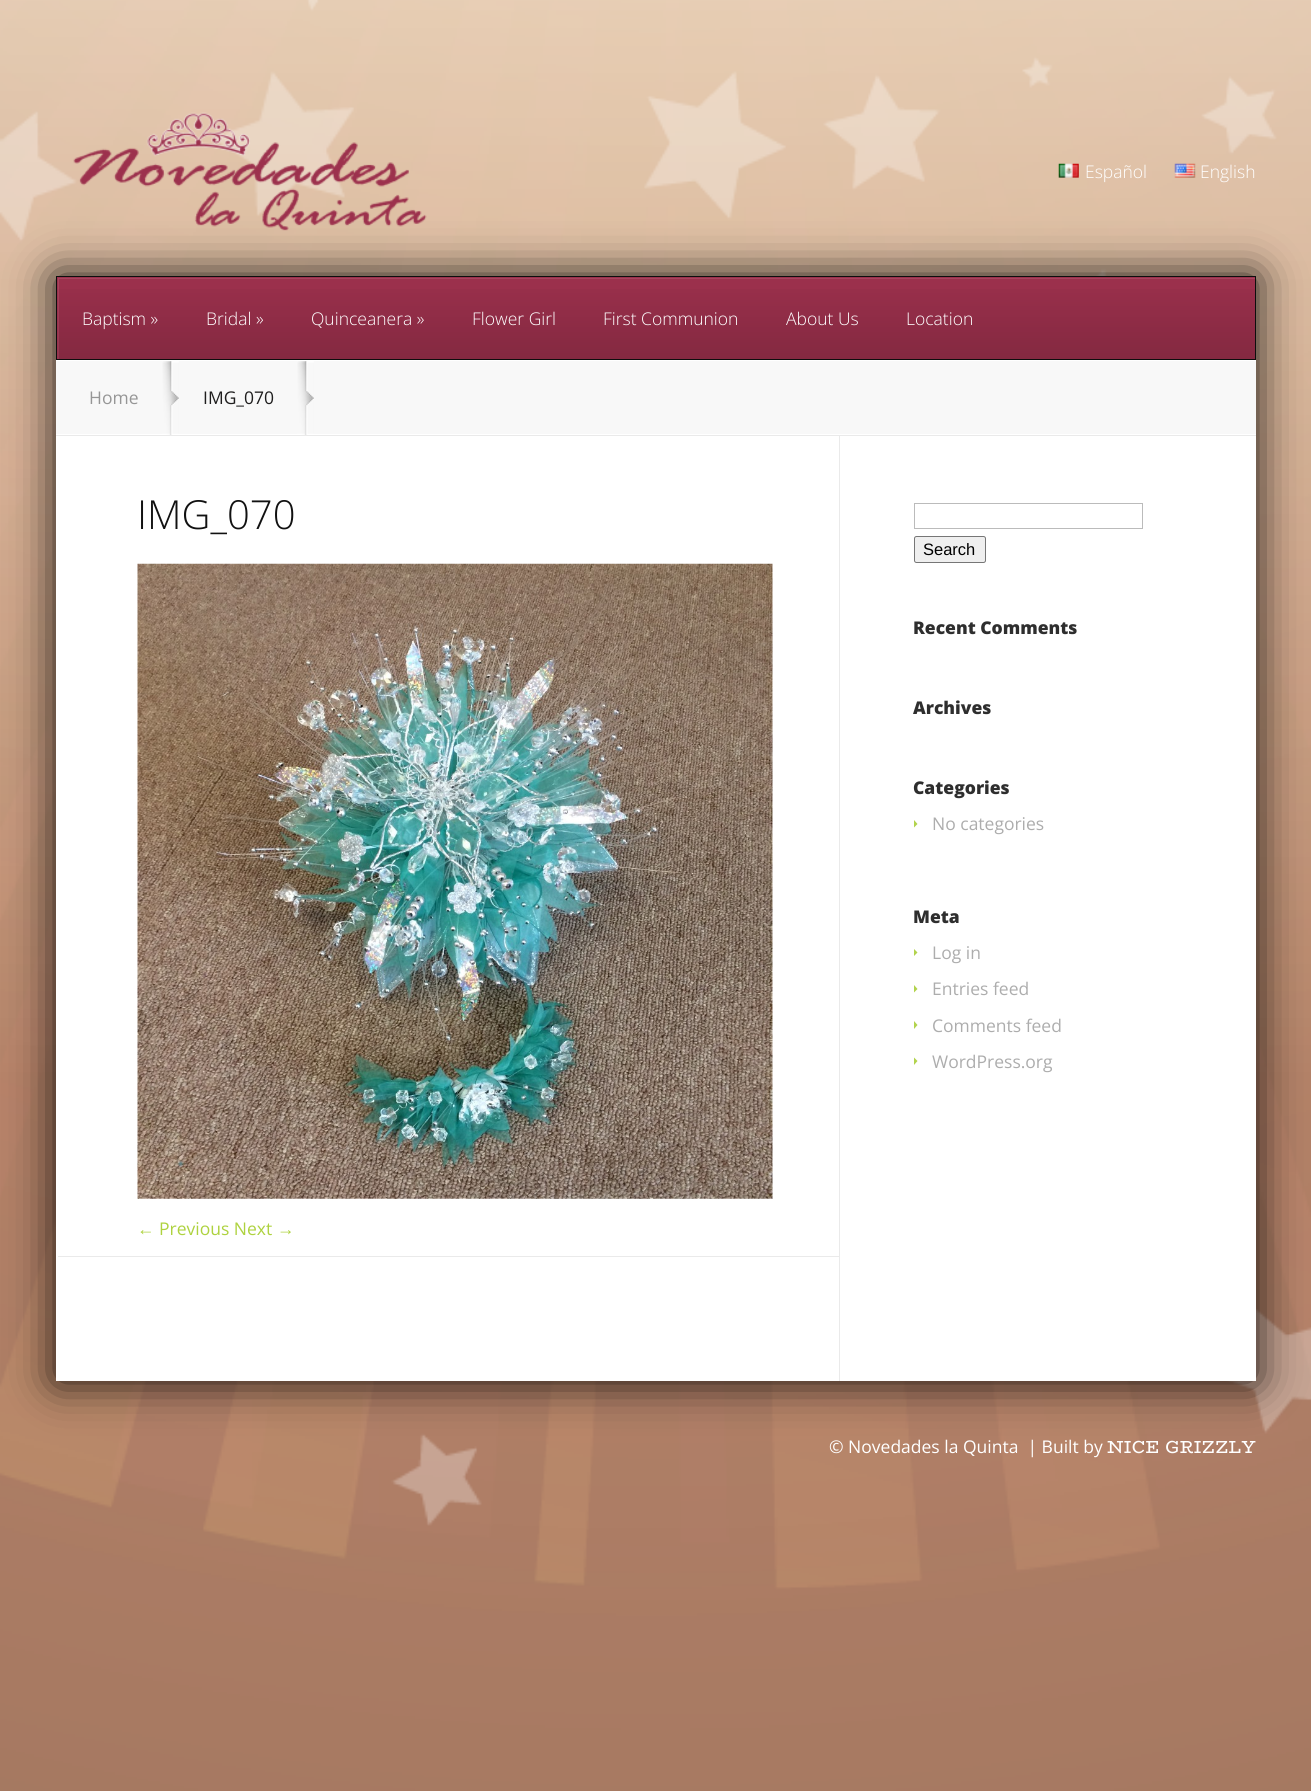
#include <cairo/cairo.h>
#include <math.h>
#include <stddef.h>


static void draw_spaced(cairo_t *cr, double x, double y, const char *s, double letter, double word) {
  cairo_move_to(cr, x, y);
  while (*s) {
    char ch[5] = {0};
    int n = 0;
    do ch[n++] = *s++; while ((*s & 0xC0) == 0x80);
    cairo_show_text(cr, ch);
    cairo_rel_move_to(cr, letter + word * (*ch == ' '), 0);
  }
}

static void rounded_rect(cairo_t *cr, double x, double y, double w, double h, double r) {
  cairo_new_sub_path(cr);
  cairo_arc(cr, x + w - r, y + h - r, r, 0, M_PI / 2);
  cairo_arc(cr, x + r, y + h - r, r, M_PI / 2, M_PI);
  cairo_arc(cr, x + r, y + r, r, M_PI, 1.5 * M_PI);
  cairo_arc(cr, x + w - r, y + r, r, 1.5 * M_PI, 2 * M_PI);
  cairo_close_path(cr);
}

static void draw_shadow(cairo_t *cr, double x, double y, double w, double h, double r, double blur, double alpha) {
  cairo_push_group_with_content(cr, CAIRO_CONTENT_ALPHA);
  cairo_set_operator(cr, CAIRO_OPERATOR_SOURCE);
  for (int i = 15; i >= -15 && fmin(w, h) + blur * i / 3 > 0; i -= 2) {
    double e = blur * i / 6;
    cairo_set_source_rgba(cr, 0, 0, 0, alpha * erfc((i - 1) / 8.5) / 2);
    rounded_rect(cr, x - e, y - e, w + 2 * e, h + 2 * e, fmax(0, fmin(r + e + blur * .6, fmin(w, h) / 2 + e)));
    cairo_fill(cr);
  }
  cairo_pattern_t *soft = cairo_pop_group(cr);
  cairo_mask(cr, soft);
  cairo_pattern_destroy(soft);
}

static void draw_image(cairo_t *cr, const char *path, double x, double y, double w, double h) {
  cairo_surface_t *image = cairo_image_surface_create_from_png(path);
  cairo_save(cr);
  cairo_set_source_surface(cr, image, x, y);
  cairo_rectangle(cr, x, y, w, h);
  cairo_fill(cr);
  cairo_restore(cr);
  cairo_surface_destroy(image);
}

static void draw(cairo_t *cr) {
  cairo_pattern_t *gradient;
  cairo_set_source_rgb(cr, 1, 1, 1);
  cairo_paint(cr);
  draw_image(cr, "images/1.png", 0, 0, 1311, 1791);
  cairo_set_source_rgb(cr, 0, 0, 0);
  draw_shadow(cr, 56, 276, 1200, 1105, 0, 22, 0.9);
  draw_image(cr, "images/2.png", 73, 112, 354, 119);
  draw_image(cr, "images/3.png", 1058, 163, 21, 15);
  draw_image(cr, "images/4.png", 1174, 163, 22, 15);
  cairo_set_source_rgb(cr, 1, 1, 1);
  cairo_rectangle(cr, 56, 436, 1200, 945);
  cairo_fill(cr);
  cairo_set_source_rgb(cr, 155 / 255.0, 48 / 255.0, 76 / 255.0);
  cairo_rectangle(cr, 57, 277, 1198, 82);
  cairo_fill(cr);
  cairo_save(cr);
  cairo_rectangle(cr, 58, 278, 1197, 81);
  cairo_clip(cr);
  cairo_set_source_rgb(cr, 165 / 255.0, 69 / 255.0, 94 / 255.0);
  cairo_set_fill_rule(cr, CAIRO_FILL_RULE_EVEN_ODD);
  cairo_new_path(cr);
  cairo_move_to(cr, -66, 154);
  cairo_line_to(cr, 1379, 154);
  cairo_line_to(cr, 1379, 482);
  cairo_line_to(cr, -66, 482);
  cairo_close_path(cr);
  cairo_move_to(cr, 59, 279);
  cairo_line_to(cr, 1256, 279);
  cairo_line_to(cr, 1256, 360);
  cairo_line_to(cr, 59, 360);
  cairo_close_path(cr);
  cairo_fill(cr);
  cairo_restore(cr);
  cairo_rectangle(cr, 56.5, 276.5, 1199, 83);
  cairo_set_source_rgb(cr, 13 / 255.0, 13 / 255.0, 13 / 255.0);
  cairo_set_line_width(cr, 1);
  cairo_stroke(cr);
  gradient = cairo_pattern_create_linear(656, 277, 656, 359);
  cairo_pattern_add_color_stop_rgba(gradient, 0, 0, 0, 0, 0);
  cairo_pattern_add_color_stop_rgba(gradient, 1, 0, 0, 0, 0.15);
  cairo_set_source(cr, gradient);
  cairo_pattern_destroy(gradient);
  cairo_rectangle(cr, 58, 289, 1197, 70);
  cairo_fill(cr);
  cairo_set_source_rgb(cr, 248 / 255.0, 248 / 255.0, 248 / 255.0);
  cairo_rectangle(cr, 56, 361, 1200, 73);
  cairo_fill(cr);
  cairo_set_source_rgb(cr, 1, 1, 1);
  cairo_rectangle(cr, 56, 360, 1200, 1);
  cairo_fill(cr);
  cairo_rectangle(cr, 56, 434, 1200, 1);
  cairo_fill(cr);
  cairo_set_source_rgb(cr, 234 / 255.0, 234 / 255.0, 234 / 255.0);
  cairo_rectangle(cr, 56, 435, 1200, 1);
  cairo_fill(cr);
  draw_image(cr, "images/5.png", 162, 361, 17, 74);
  draw_image(cr, "images/5.png", 297, 361, 17, 74);
  draw_image(cr, "images/6.png", 137, 563, 636, 636);
  cairo_rectangle(cr, 839, 436, 1, 945);
  cairo_fill(cr);
  cairo_rectangle(cr, 58, 1256, 782, 1);
  cairo_fill(cr);
  cairo_rectangle(cr, 914.5, 503.5, 228, 25);
  cairo_set_source_rgb(cr, 187 / 255.0, 187 / 255.0, 187 / 255.0);
  cairo_stroke(cr);
  cairo_set_source_rgb(cr, 239 / 255.0, 239 / 255.0, 239 / 255.0);
  rounded_rect(cr, 914.5, 536.5, 71, 26, 2);
  cairo_fill_preserve(cr);
  cairo_set_source_rgb(cr, 118 / 255.0, 118 / 255.0, 118 / 255.0);
  cairo_stroke(cr);
  cairo_set_source_rgb(cr, 178 / 255.0, 211 / 255.0, 77 / 255.0);
  cairo_new_path(cr);
  cairo_move_to(cr, 914, 827.5);
  cairo_line_to(cr, 914, 820);
  cairo_line_to(cr, 917.5, 824);
  cairo_close_path(cr);
  cairo_fill(cr);
  cairo_new_path(cr);
  cairo_move_to(cr, 914, 956);
  cairo_line_to(cr, 914, 949);
  cairo_line_to(cr, 917.5, 952.5);
  cairo_close_path(cr);
  cairo_fill(cr);
  cairo_new_path(cr);
  cairo_move_to(cr, 914, 992.5);
  cairo_line_to(cr, 914, 985);
  cairo_line_to(cr, 917.5, 989);
  cairo_close_path(cr);
  cairo_fill(cr);
  cairo_new_path(cr);
  cairo_move_to(cr, 914, 1029);
  cairo_line_to(cr, 914, 1021);
  cairo_line_to(cr, 917.5, 1025);
  cairo_close_path(cr);
  cairo_fill(cr);
  cairo_new_path(cr);
  cairo_move_to(cr, 914, 1065);
  cairo_line_to(cr, 914, 1057.5);
  cairo_line_to(cr, 917.5, 1061);
  cairo_close_path(cr);
  cairo_fill(cr);
  cairo_select_font_face(cr, "Open Sans Light", CAIRO_FONT_SLANT_NORMAL, CAIRO_FONT_WEIGHT_NORMAL);
  cairo_set_font_size(cr, 17.5);
  cairo_set_source_rgb(cr, 1, 1, 1);
  cairo_move_to(cr, 1085, 178);
  cairo_show_text(cr, "Español");
  cairo_move_to(cr, 1200, 178);
  cairo_show_text(cr, "English");
  cairo_move_to(cr, 82, 325);
  cairo_show_text(cr, "Baptism »");
  cairo_move_to(cr, 206, 325);
  cairo_show_text(cr, "Bridal »");
  cairo_move_to(cr, 311, 325);
  cairo_show_text(cr, "Quinceanera »");
  cairo_move_to(cr, 472, 325);
  cairo_show_text(cr, "Flower Girl");
  cairo_move_to(cr, 603, 325);
  cairo_show_text(cr, "First Communion");
  cairo_move_to(cr, 786, 325);
  cairo_show_text(cr, "About Us");
  cairo_move_to(cr, 906, 325);
  cairo_show_text(cr, "Location");
  cairo_select_font_face(cr, "Open Sans", CAIRO_FONT_SLANT_NORMAL, CAIRO_FONT_WEIGHT_NORMAL);
  cairo_set_source_rgb(cr, 150 / 255.0, 150 / 255.0, 150 / 255.0);
  cairo_move_to(cr, 89, 404);
  cairo_show_text(cr, "Home");
  cairo_set_source_rgb(cr, 31 / 255.0, 30 / 255.0, 30 / 255.0);
  cairo_move_to(cr, 203, 404);
  cairo_show_text(cr, "IMG_070");
  cairo_select_font_face(cr, "Open Sans Light", CAIRO_FONT_SLANT_NORMAL, CAIRO_FONT_WEIGHT_NORMAL);
  cairo_set_font_size(cr, 40);
  cairo_set_source_rgb(cr, 17 / 255.0, 17 / 255.0, 17 / 255.0);
  cairo_move_to(cr, 137, 529);
  cairo_show_text(cr, "IMG_070");
  cairo_select_font_face(cr, "Liberation Sans", CAIRO_FONT_SLANT_NORMAL, CAIRO_FONT_WEIGHT_NORMAL);
  cairo_set_font_size(cr, 17.5);
  cairo_set_source_rgb(cr, 174 / 255.0, 210 / 255.0, 63 / 255.0);
  cairo_move_to(cr, 137, 1235);
  cairo_show_text(cr, "←");
  cairo_select_font_face(cr, "Open Sans", CAIRO_FONT_SLANT_NORMAL, CAIRO_FONT_WEIGHT_NORMAL);
  cairo_move_to(cr, 159, 1235);
  cairo_show_text(cr, "Previous Next");
  cairo_select_font_face(cr, "Liberation Sans", CAIRO_FONT_SLANT_NORMAL, CAIRO_FONT_WEIGHT_NORMAL);
  cairo_move_to(cr, 277, 1235);
  cairo_show_text(cr, "→");
  cairo_set_font_size(cr, 16.5);
  cairo_set_source_rgb(cr, 0, 0, 0);
  cairo_move_to(cr, 923, 555);
  cairo_show_text(cr, "Search");
  cairo_select_font_face(cr, "Open Sans ExtraBold", CAIRO_FONT_SLANT_NORMAL, CAIRO_FONT_WEIGHT_NORMAL);
  cairo_set_font_size(cr, 17.5);
  cairo_set_source_rgb(cr, 46 / 255.0, 46 / 255.0, 46 / 255.0);
  cairo_move_to(cr, 913, 634);
  cairo_show_text(cr, "Recent Comments");
  cairo_move_to(cr, 913, 714);
  cairo_show_text(cr, "Archives");
  cairo_move_to(cr, 913, 794);
  cairo_show_text(cr, "Categories");
  cairo_select_font_face(cr, "Open Sans", CAIRO_FONT_SLANT_NORMAL, CAIRO_FONT_WEIGHT_NORMAL);
  cairo_set_source_rgb(cr, 173 / 255.0, 173 / 255.0, 173 / 255.0);
  cairo_move_to(cr, 932, 830);
  cairo_show_text(cr, "No categories");
  cairo_select_font_face(cr, "Open Sans ExtraBold", CAIRO_FONT_SLANT_NORMAL, CAIRO_FONT_WEIGHT_NORMAL);
  cairo_set_source_rgb(cr, 46 / 255.0, 46 / 255.0, 46 / 255.0);
  cairo_move_to(cr, 913, 923);
  cairo_show_text(cr, "Meta");
  cairo_select_font_face(cr, "Open Sans", CAIRO_FONT_SLANT_NORMAL, CAIRO_FONT_WEIGHT_NORMAL);
  cairo_set_source_rgb(cr, 173 / 255.0, 173 / 255.0, 173 / 255.0);
  cairo_move_to(cr, 932, 959);
  cairo_show_text(cr, "Log in");
  cairo_move_to(cr, 932, 995);
  cairo_show_text(cr, "Entries feed");
  cairo_move_to(cr, 932, 1032);
  cairo_show_text(cr, "Comments feed");
  cairo_move_to(cr, 932, 1068);
  cairo_show_text(cr, "WordPress.org");
  cairo_set_source_rgb(cr, 1, 1, 1);
  cairo_move_to(cr, 829, 1453);
  cairo_show_text(cr, "© Novedades la Quinta  | Built by");
  cairo_select_font_face(cr, "BioRhyme ExtraBold", CAIRO_FONT_SLANT_NORMAL, CAIRO_FONT_WEIGHT_NORMAL);
  draw_spaced(cr, 1107, 1453, "NICE GRIZZLY", 0.4, 0);
}

int main(void) {
  cairo_surface_t *surface = cairo_image_surface_create(CAIRO_FORMAT_RGB24, 1311, 1791);
  cairo_t *cr = cairo_create(surface);
  cairo_font_options_t *options = cairo_font_options_create();
  cairo_font_options_set_hint_metrics(options, CAIRO_HINT_METRICS_OFF);
  cairo_font_options_set_hint_style(options, CAIRO_HINT_STYLE_NONE);
  cairo_set_font_options(cr, options);
  cairo_set_miter_limit(cr, 4);
  draw(cr);
  cairo_surface_write_to_png(surface, "out.png");
  cairo_font_options_destroy(options);
  cairo_destroy(cr);
  cairo_surface_destroy(surface);
  return 0;
}
